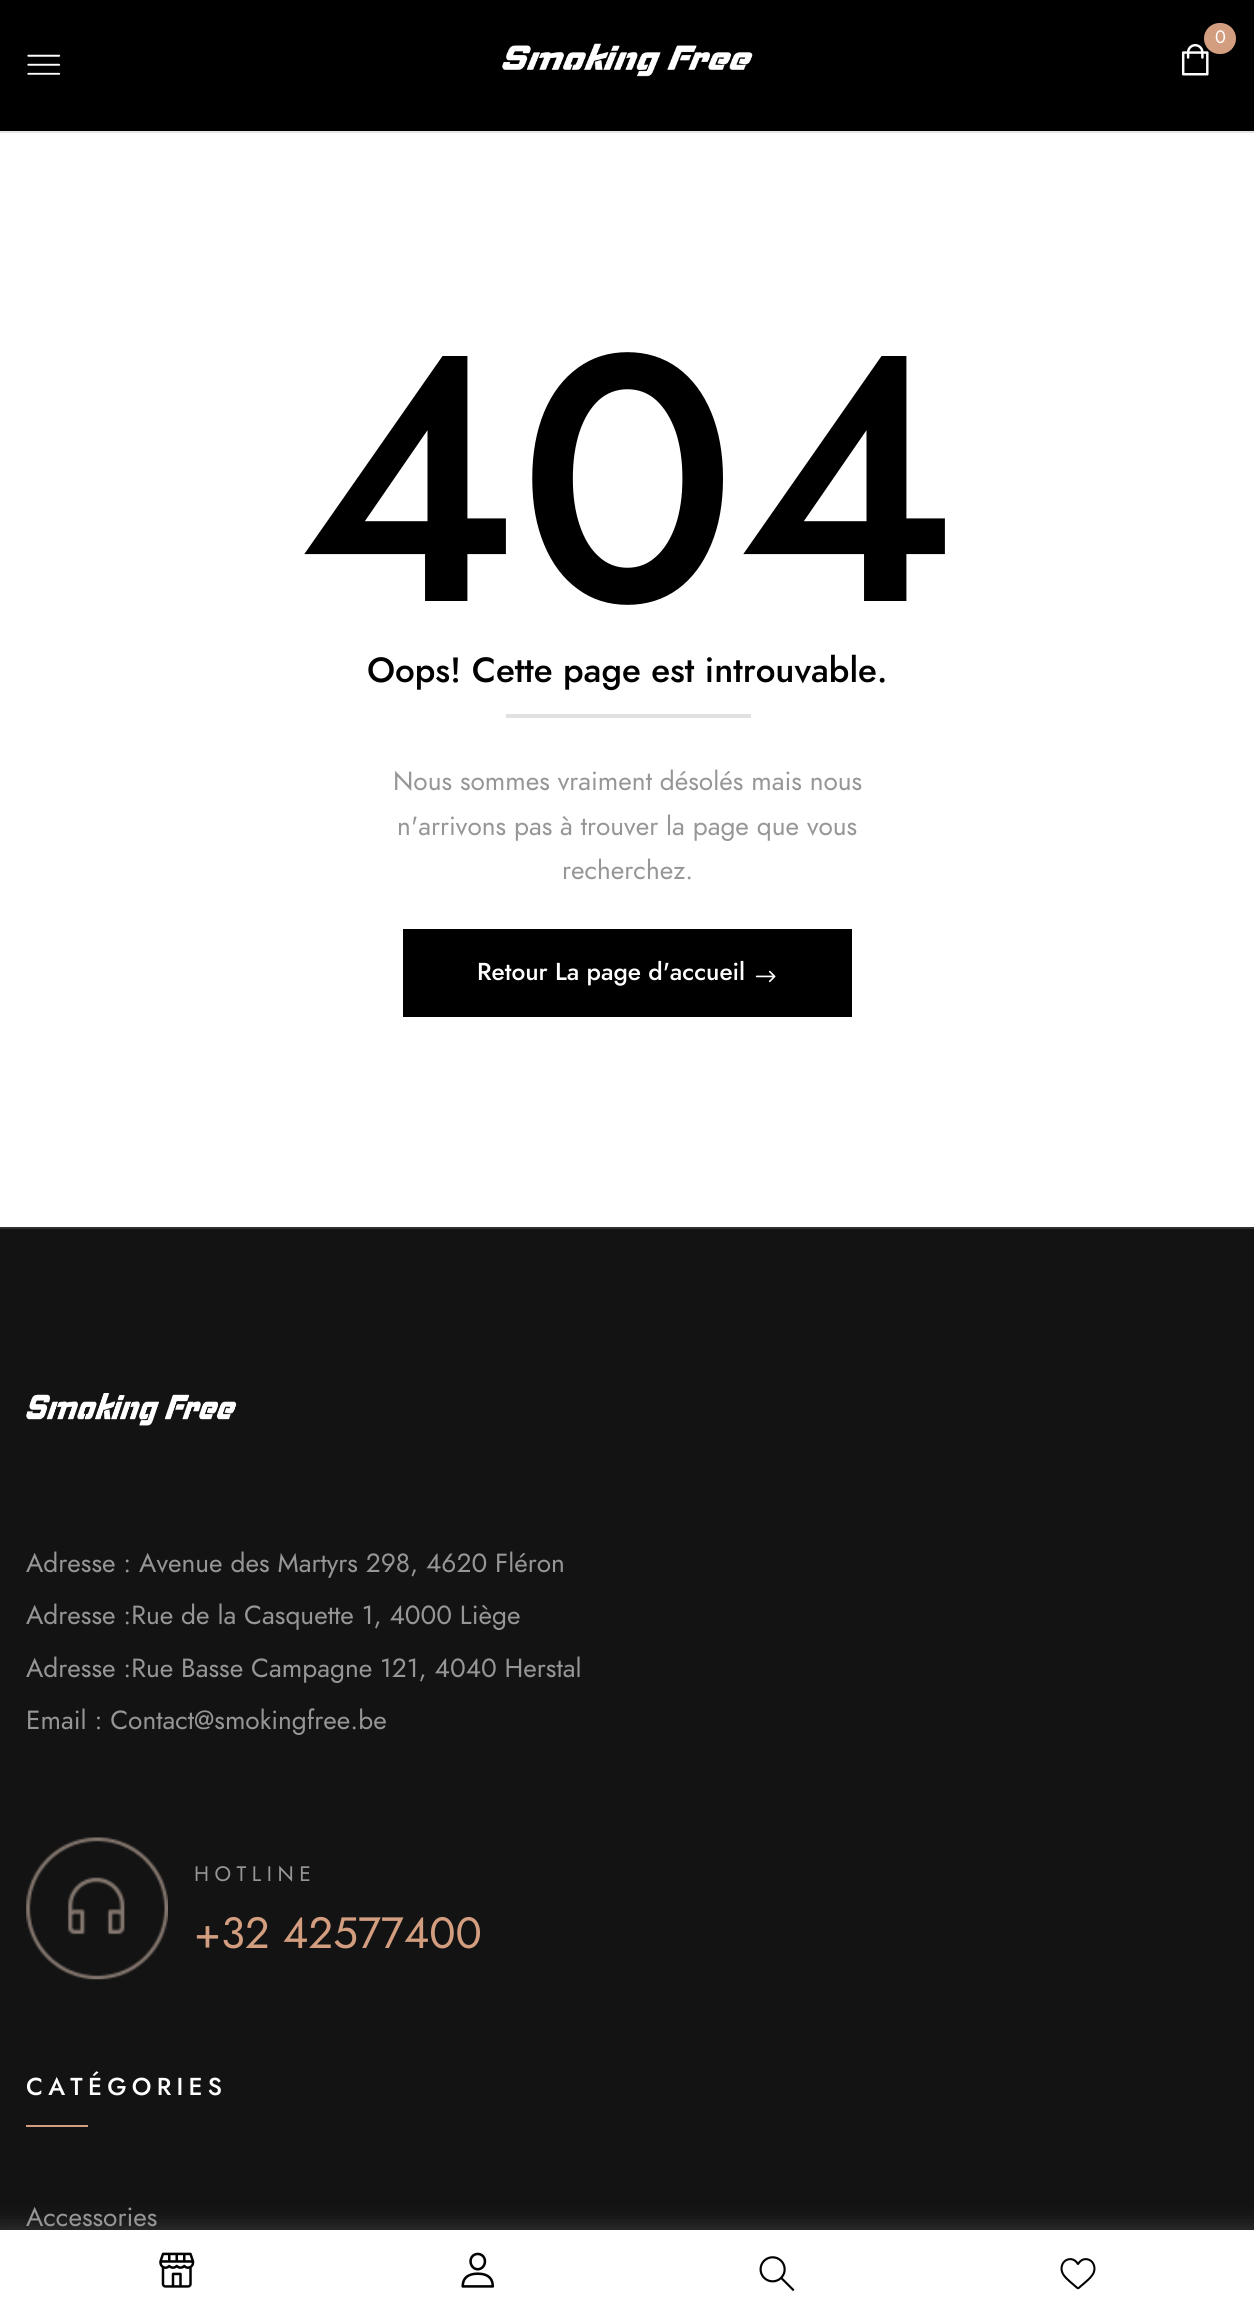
#include <cairo/cairo.h>
#include <math.h>
#include <stddef.h>


static void draw_spaced(cairo_t *cr, double x, double y, const char *s, double letter, double word) {
  cairo_move_to(cr, x, y);
  while (*s) {
    char ch[5] = {0};
    int n = 0;
    do ch[n++] = *s++; while ((*s & 0xC0) == 0x80);
    cairo_show_text(cr, ch);
    cairo_rel_move_to(cr, letter + word * (*ch == ' '), 0);
  }
}

static void rounded_rect(cairo_t *cr, double x, double y, double w, double h, double r) {
  cairo_new_sub_path(cr);
  cairo_arc(cr, x + w - r, y + h - r, r, 0, M_PI / 2);
  cairo_arc(cr, x + r, y + h - r, r, M_PI / 2, M_PI);
  cairo_arc(cr, x + r, y + r, r, M_PI, 1.5 * M_PI);
  cairo_arc(cr, x + w - r, y + r, r, 1.5 * M_PI, 2 * M_PI);
  cairo_close_path(cr);
}

static void draw_shadow(cairo_t *cr, double x, double y, double w, double h, double r, double blur, double alpha) {
  cairo_push_group_with_content(cr, CAIRO_CONTENT_ALPHA);
  cairo_set_operator(cr, CAIRO_OPERATOR_SOURCE);
  for (int i = 15; i >= -15 && fmin(w, h) + blur * i / 3 > 0; i -= 2) {
    double e = blur * i / 6;
    cairo_set_source_rgba(cr, 0, 0, 0, alpha * erfc((i - 1) / 8.5) / 2);
    rounded_rect(cr, x - e, y - e, w + 2 * e, h + 2 * e, fmax(0, fmin(r + e + blur * .6, fmin(w, h) / 2 + e)));
    cairo_fill(cr);
  }
  cairo_pattern_t *soft = cairo_pop_group(cr);
  cairo_mask(cr, soft);
  cairo_pattern_destroy(soft);
}

static void draw_image(cairo_t *cr, const char *path, double x, double y, double w, double h) {
  cairo_surface_t *image = cairo_image_surface_create_from_png(path);
  cairo_save(cr);
  cairo_set_source_surface(cr, image, x, y);
  cairo_rectangle(cr, x, y, w, h);
  cairo_fill(cr);
  cairo_restore(cr);
  cairo_surface_destroy(image);
}

static void draw(cairo_t *cr) {
  cairo_set_source_rgb(cr, 1, 1, 1);
  cairo_paint(cr);
  cairo_set_source_rgb(cr, 0, 0, 0);
  cairo_rectangle(cr, 0, 0, 1254, 131);
  cairo_fill(cr);
  cairo_set_source_rgb(cr, 229 / 255.0, 229 / 255.0, 229 / 255.0);
  cairo_rectangle(cr, 0, 131, 1254, 2);
  cairo_fill(cr);
  draw_image(cr, "images/1.png", 1181, 44, 28, 32);
  cairo_set_source_rgb(cr, 211 / 255.0, 158 / 255.0, 128 / 255.0);
  rounded_rect(cr, 1204, 23, 32, 31, 15.5);
  cairo_fill(cr);
  draw_image(cr, "images/2.png", 27, 54, 34, 21);
  draw_image(cr, "images/3.png", 502, 43, 251, 34);
  cairo_set_source_rgb(cr, 19 / 255.0, 19 / 255.0, 19 / 255.0);
  cairo_rectangle(cr, 0, 1229, 1254, 1001);
  cairo_fill(cr);
  cairo_set_source_rgb(cr, 143 / 255.0, 143 / 255.0, 143 / 255.0);
  draw_shadow(cr, -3, 2228, 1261, 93, 0, 10.5, 0.3);
  cairo_set_source_rgb(cr, 1, 1, 1);
  cairo_rectangle(cr, 0, 2230, 1254, 84);
  cairo_fill(cr);
  draw_image(cr, "images/4.png", 159, 2252, 36, 36);
  draw_image(cr, "images/5.png", 461, 2252, 34, 36);
  draw_image(cr, "images/6.png", 759, 2256, 36, 36);
  draw_image(cr, "images/7.png", 1060, 2258, 36, 32);
  cairo_set_source_rgb(cr, 225 / 255.0, 225 / 255.0, 225 / 255.0);
  cairo_rectangle(cr, 506, 714, 245, 4);
  cairo_fill(cr);
  cairo_set_source_rgb(cr, 0, 0, 0);
  cairo_rectangle(cr, 403, 929, 449, 88);
  cairo_fill(cr);
  draw_image(cr, "images/8.png", 755, 970, 21, 13);
  cairo_set_source_rgb(cr, 48 / 255.0, 48 / 255.0, 48 / 255.0);
  cairo_rectangle(cr, 0, 1227, 1254, 2);
  cairo_fill(cr);
  draw_image(cr, "images/9.png", 26, 1393, 211, 33);
  draw_image(cr, "images/10.png", 26, 1837, 142, 143);
  cairo_set_source_rgb(cr, 211 / 255.0, 158 / 255.0, 128 / 255.0);
  cairo_rectangle(cr, 26, 2125, 62, 2);
  cairo_fill(cr);
  cairo_select_font_face(cr, "Jost", CAIRO_FONT_SLANT_NORMAL, CAIRO_FONT_WEIGHT_NORMAL);
  cairo_set_font_size(cr, 18);
  cairo_set_source_rgb(cr, 1, 1, 1);
  cairo_move_to(cr, 1215, 43);
  cairo_show_text(cr, "0");
  cairo_select_font_face(cr, "Jost Medium", CAIRO_FONT_SLANT_NORMAL, CAIRO_FONT_WEIGHT_NORMAL);
  cairo_set_font_size(cr, 350);
  cairo_set_source_rgb(cr, 0, 0, 0);
  cairo_move_to(cr, 298, 601);
  cairo_show_text(cr, "404");
  cairo_set_font_size(cr, 35);
  cairo_move_to(cr, 367, 682);
  cairo_show_text(cr, "Oops! Cette page est introuvable.");
  cairo_select_font_face(cr, "Jost", CAIRO_FONT_SLANT_NORMAL, CAIRO_FONT_WEIGHT_NORMAL);
  cairo_set_font_size(cr, 26.25);
  cairo_set_source_rgb(cr, 150 / 255.0, 150 / 255.0, 150 / 255.0);
  cairo_move_to(cr, 393, 790);
  cairo_show_text(cr, "Nous sommes vraiment désolés mais nous");
  cairo_move_to(cr, 397, 835);
  cairo_show_text(cr, "n'arrivons pas à trouver la page que vous");
  cairo_move_to(cr, 562, 879);
  cairo_show_text(cr, "recherchez.");
  cairo_select_font_face(cr, "Jost Medium", CAIRO_FONT_SLANT_NORMAL, CAIRO_FONT_WEIGHT_NORMAL);
  cairo_set_font_size(cr, 24.5);
  cairo_set_source_rgb(cr, 1, 1, 1);
  cairo_move_to(cr, 477, 980);
  cairo_show_text(cr, "Retour La page d'accueil");
  cairo_select_font_face(cr, "Jost", CAIRO_FONT_SLANT_NORMAL, CAIRO_FONT_WEIGHT_NORMAL);
  cairo_set_font_size(cr, 26.25);
  cairo_set_source_rgb(cr, 150 / 255.0, 150 / 255.0, 150 / 255.0);
  cairo_move_to(cr, 26, 1572);
  cairo_show_text(cr, "Adresse : Avenue des Martyrs 298, 4620 Fléron");
  cairo_move_to(cr, 26, 1624);
  cairo_show_text(cr, "Adresse :Rue de la Casquette 1, 4000 Liège");
  cairo_move_to(cr, 26, 1677);
  cairo_show_text(cr, "Adresse :Rue Basse Campagne 121, 4040 Herstal");
  cairo_move_to(cr, 26, 1729);
  cairo_show_text(cr, "Email : Contact@smokingfree.be");
  cairo_set_font_size(cr, 21);
  draw_spaced(cr, 194, 1881, "HOTLINE", 5.5, 0);
  cairo_set_font_size(cr, 43.75);
  cairo_set_source_rgb(cr, 211 / 255.0, 158 / 255.0, 128 / 255.0);
  cairo_move_to(cr, 194, 1948);
  cairo_show_text(cr, "+32 42577400");
  cairo_select_font_face(cr, "Jost Medium", CAIRO_FONT_SLANT_NORMAL, CAIRO_FONT_WEIGHT_NORMAL);
  cairo_set_font_size(cr, 24.5);
  cairo_set_source_rgb(cr, 1, 1, 1);
  draw_spaced(cr, 26, 2095, "CATÉGORIES", 5.25, 0);
  cairo_select_font_face(cr, "Jost", CAIRO_FONT_SLANT_NORMAL, CAIRO_FONT_WEIGHT_NORMAL);
  cairo_set_font_size(cr, 26.25);
  cairo_set_source_rgb(cr, 150 / 255.0, 150 / 255.0, 150 / 255.0);
  cairo_move_to(cr, 26, 2226);
  cairo_show_text(cr, "Accessories");
}

int main(void) {
  cairo_surface_t *surface = cairo_image_surface_create(CAIRO_FORMAT_RGB24, 1254, 2314);
  cairo_t *cr = cairo_create(surface);
  cairo_font_options_t *options = cairo_font_options_create();
  cairo_font_options_set_hint_metrics(options, CAIRO_HINT_METRICS_OFF);
  cairo_font_options_set_hint_style(options, CAIRO_HINT_STYLE_NONE);
  cairo_set_font_options(cr, options);
  cairo_set_miter_limit(cr, 4);
  draw(cr);
  cairo_surface_write_to_png(surface, "out.png");
  cairo_font_options_destroy(options);
  cairo_destroy(cr);
  cairo_surface_destroy(surface);
  return 0;
}
